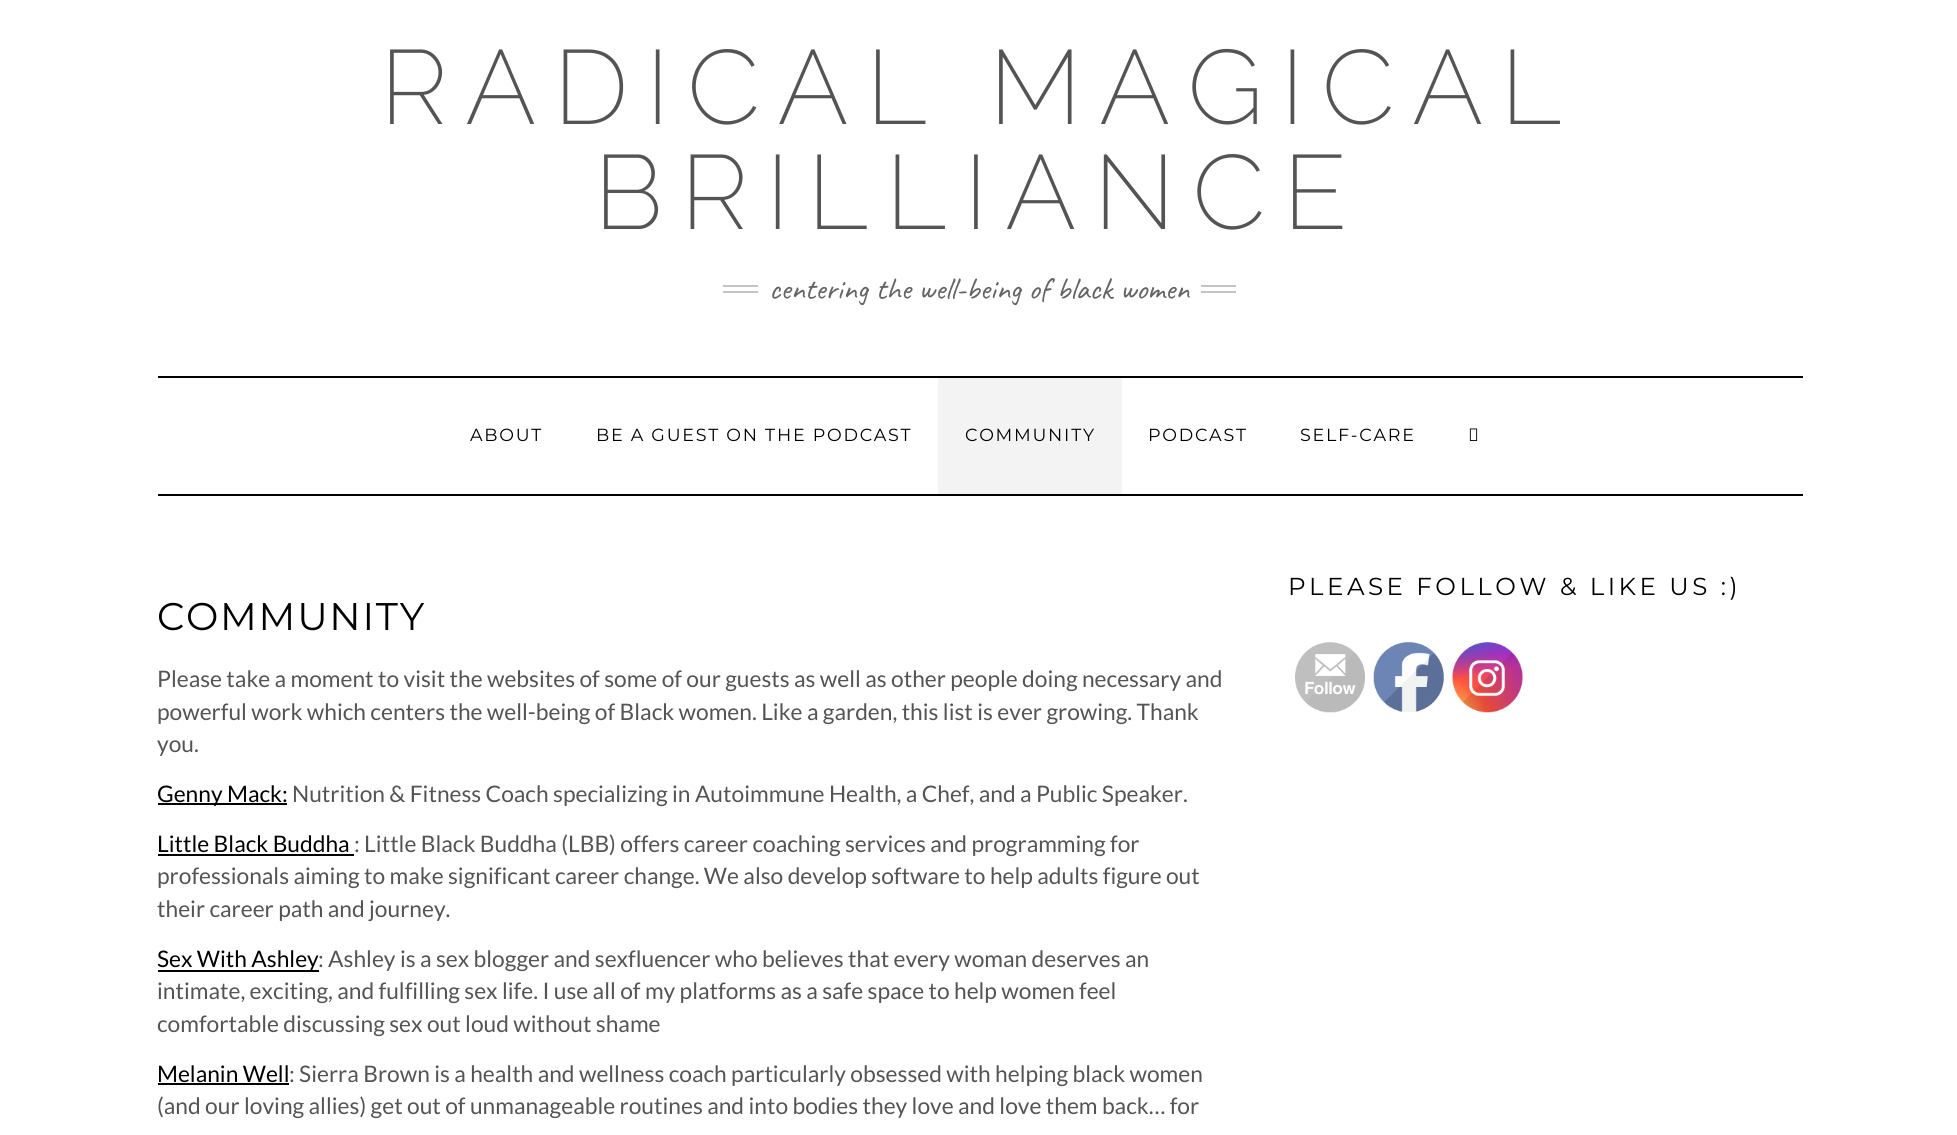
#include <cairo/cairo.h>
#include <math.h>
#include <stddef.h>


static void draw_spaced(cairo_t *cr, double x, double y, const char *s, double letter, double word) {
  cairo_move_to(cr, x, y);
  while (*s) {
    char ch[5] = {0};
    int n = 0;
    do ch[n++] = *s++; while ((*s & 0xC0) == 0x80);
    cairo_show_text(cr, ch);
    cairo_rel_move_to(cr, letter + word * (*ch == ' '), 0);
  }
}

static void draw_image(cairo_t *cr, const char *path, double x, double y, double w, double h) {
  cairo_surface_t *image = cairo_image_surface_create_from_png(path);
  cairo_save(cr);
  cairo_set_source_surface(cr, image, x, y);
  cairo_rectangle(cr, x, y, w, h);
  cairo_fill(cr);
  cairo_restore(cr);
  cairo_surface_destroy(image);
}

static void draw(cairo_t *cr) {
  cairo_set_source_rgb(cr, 1, 1, 1);
  cairo_paint(cr);
  cairo_set_source_rgb(cr, 196 / 255.0, 196 / 255.0, 196 / 255.0);
  cairo_rectangle(cr, 723, 285, 35, 2);
  cairo_fill(cr);
  cairo_rectangle(cr, 723, 291, 35, 2);
  cairo_fill(cr);
  cairo_rectangle(cr, 1201, 285, 35, 2);
  cairo_fill(cr);
  cairo_rectangle(cr, 1201, 291, 35, 2);
  cairo_fill(cr);
  cairo_set_source_rgb(cr, 0, 0, 0);
  cairo_rectangle(cr, 158, 376, 1645, 2);
  cairo_fill(cr);
  cairo_rectangle(cr, 158, 494, 1645, 2);
  cairo_fill(cr);
  cairo_set_source_rgb(cr, 243 / 255.0, 243 / 255.0, 243 / 255.0);
  cairo_rectangle(cr, 938, 378, 184, 116);
  cairo_fill(cr);
  draw_image(cr, "images/1.png", 1469, 428, 9, 13);
  draw_image(cr, "images/2.png", 1295, 642, 70, 71);
  draw_image(cr, "images/3.png", 1373, 642, 71, 70);
  draw_image(cr, "images/4.png", 1452, 642, 71, 71);
  cairo_set_source_rgb(cr, 0, 0, 0);
  cairo_rectangle(cr, 158, 803, 129, 2);
  cairo_fill(cr);
  cairo_rectangle(cr, 158, 854, 196, 2);
  cairo_fill(cr);
  cairo_rectangle(cr, 158, 970, 161, 2);
  cairo_fill(cr);
  cairo_rectangle(cr, 158, 1083, 131, 2);
  cairo_fill(cr);
  cairo_select_font_face(cr, "Raleway Thin", CAIRO_FONT_SLANT_NORMAL, CAIRO_FONT_WEIGHT_NORMAL);
  cairo_set_font_size(cr, 105);
  cairo_set_source_rgb(cr, 84 / 255.0, 84 / 255.0, 84 / 255.0);
  draw_spaced(cr, 380, 124, "RADICAL MAGICAL", 17.5, 0);
  draw_spaced(cr, 594, 229, "BRILLIANCE", 17.5, 0);
  cairo_select_font_face(cr, "Caveat", CAIRO_FONT_SLANT_NORMAL, CAIRO_FONT_WEIGHT_NORMAL);
  cairo_set_font_size(cr, 31.5);
  cairo_set_source_rgb(cr, 100 / 255.0, 100 / 255.0, 100 / 255.0);
  cairo_move_to(cr, 769, 299);
  cairo_show_text(cr, "centering the well-being of black women");
  cairo_select_font_face(cr, "Montserrat", CAIRO_FONT_SLANT_NORMAL, CAIRO_FONT_WEIGHT_NORMAL);
  cairo_set_font_size(cr, 17.5);
  cairo_set_source_rgb(cr, 0, 0, 0);
  draw_spaced(cr, 470, 441, "ABOUT", 1.75, 0);
  draw_spaced(cr, 596, 441, "BE A GUEST ON THE PODCAST", 1.75, 0);
  draw_spaced(cr, 965, 441, "COMMUNITY", 1.75, 0);
  draw_spaced(cr, 1148, 441, "PODCAST", 1.75, 0);
  draw_spaced(cr, 1300, 441, "SELF-CARE", 1.75, 0);
  cairo_set_font_size(cr, 24.5);
  draw_spaced(cr, 1288, 595, "PLEASE FOLLOW & LIKE US :)", 3.5, 0);
  cairo_set_font_size(cr, 38.5);
  draw_spaced(cr, 157, 630, "COMMUNITY", 1.75, 0);
  cairo_select_font_face(cr, "Lato", CAIRO_FONT_SLANT_NORMAL, CAIRO_FONT_WEIGHT_NORMAL);
  cairo_set_font_size(cr, 22.75);
  cairo_set_source_rgb(cr, 84 / 255.0, 84 / 255.0, 84 / 255.0);
  cairo_move_to(cr, 157, 687);
  cairo_show_text(cr, "Please take a moment to visit the websites of some of our guests as well as other people doing necessary and");
  cairo_move_to(cr, 157, 720);
  cairo_show_text(cr, "powerful work which centers the well-being of Black women. Like a garden, this list is ever growing. Thank");
  cairo_move_to(cr, 157, 752);
  cairo_show_text(cr, "you.");
  cairo_set_source_rgb(cr, 0, 0, 0);
  cairo_move_to(cr, 157, 802);
  cairo_show_text(cr, "Genny Mack:");
  cairo_set_source_rgb(cr, 84 / 255.0, 84 / 255.0, 84 / 255.0);
  cairo_move_to(cr, 292, 802);
  cairo_show_text(cr, "Nutrition & Fitness Coach specializing in Autoimmune Health, a Chef, and a Public Speaker.");
  cairo_set_source_rgb(cr, 0, 0, 0);
  cairo_move_to(cr, 157, 852);
  cairo_show_text(cr, "Little Black Buddha");
  cairo_set_source_rgb(cr, 84 / 255.0, 84 / 255.0, 84 / 255.0);
  cairo_move_to(cr, 354, 852);
  cairo_show_text(cr, ": Little Black Buddha (LBB) offers career coaching services and programming for");
  cairo_move_to(cr, 157, 884);
  cairo_show_text(cr, "professionals aiming to make significant career change. We also develop software to help adults figure out");
  cairo_move_to(cr, 157, 917);
  cairo_show_text(cr, "their career path and journey.");
  cairo_set_source_rgb(cr, 0, 0, 0);
  cairo_move_to(cr, 157, 967);
  cairo_show_text(cr, "Sex With Ashley");
  cairo_set_source_rgb(cr, 84 / 255.0, 84 / 255.0, 84 / 255.0);
  cairo_move_to(cr, 318, 967);
  cairo_show_text(cr, ": Ashley is a sex blogger and sexfluencer who believes that every woman deserves an");
  cairo_move_to(cr, 157, 999);
  cairo_show_text(cr, "intimate, exciting, and fulfilling sex life. I use all of my platforms as a safe space to help women feel");
  cairo_move_to(cr, 157, 1032);
  cairo_show_text(cr, "comfortable discussing sex out loud without shame");
  cairo_set_source_rgb(cr, 0, 0, 0);
  cairo_move_to(cr, 157, 1082);
  cairo_show_text(cr, "Melanin Well");
  cairo_set_source_rgb(cr, 84 / 255.0, 84 / 255.0, 84 / 255.0);
  cairo_move_to(cr, 289, 1082);
  cairo_show_text(cr, ": Sierra Brown is a health and wellness coach particularly obsessed with helping black women");
  cairo_move_to(cr, 157, 1114);
  cairo_show_text(cr, "(and our loving allies) get out of unmanageable routines and into bodies they love and love them back… for");
}

int main(void) {
  cairo_surface_t *surface = cairo_image_surface_create(CAIRO_FORMAT_RGB24, 1957, 1135);
  cairo_t *cr = cairo_create(surface);
  cairo_font_options_t *options = cairo_font_options_create();
  cairo_font_options_set_hint_metrics(options, CAIRO_HINT_METRICS_OFF);
  cairo_font_options_set_hint_style(options, CAIRO_HINT_STYLE_NONE);
  cairo_set_font_options(cr, options);
  cairo_set_miter_limit(cr, 4);
  draw(cr);
  cairo_surface_write_to_png(surface, "out.png");
  cairo_font_options_destroy(options);
  cairo_destroy(cr);
  cairo_surface_destroy(surface);
  return 0;
}
